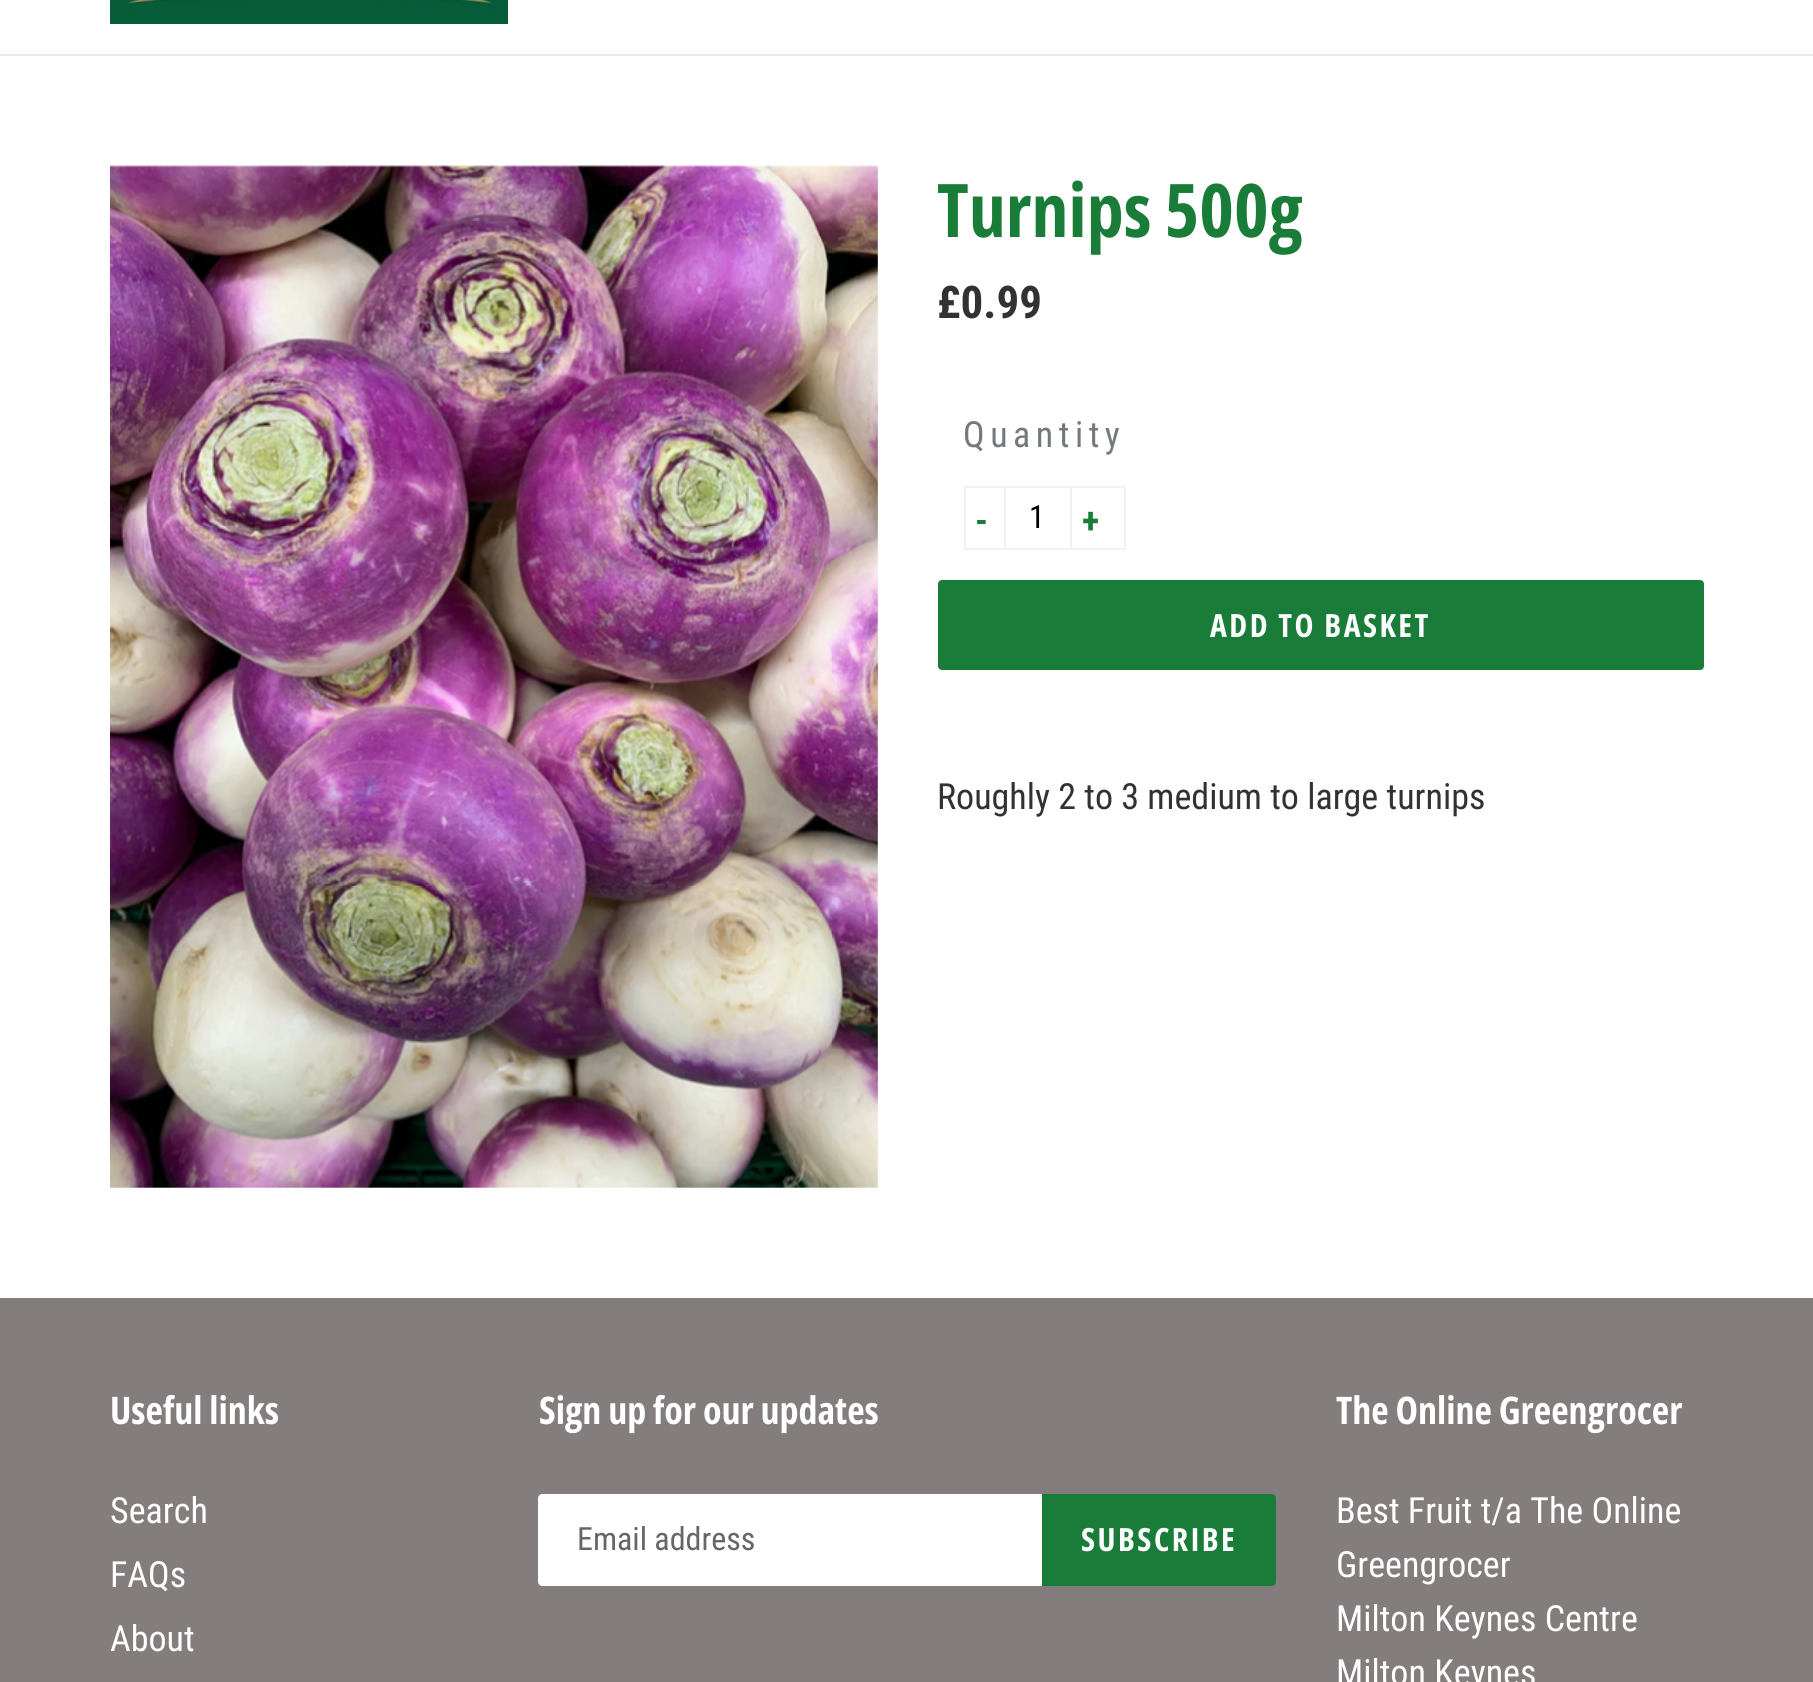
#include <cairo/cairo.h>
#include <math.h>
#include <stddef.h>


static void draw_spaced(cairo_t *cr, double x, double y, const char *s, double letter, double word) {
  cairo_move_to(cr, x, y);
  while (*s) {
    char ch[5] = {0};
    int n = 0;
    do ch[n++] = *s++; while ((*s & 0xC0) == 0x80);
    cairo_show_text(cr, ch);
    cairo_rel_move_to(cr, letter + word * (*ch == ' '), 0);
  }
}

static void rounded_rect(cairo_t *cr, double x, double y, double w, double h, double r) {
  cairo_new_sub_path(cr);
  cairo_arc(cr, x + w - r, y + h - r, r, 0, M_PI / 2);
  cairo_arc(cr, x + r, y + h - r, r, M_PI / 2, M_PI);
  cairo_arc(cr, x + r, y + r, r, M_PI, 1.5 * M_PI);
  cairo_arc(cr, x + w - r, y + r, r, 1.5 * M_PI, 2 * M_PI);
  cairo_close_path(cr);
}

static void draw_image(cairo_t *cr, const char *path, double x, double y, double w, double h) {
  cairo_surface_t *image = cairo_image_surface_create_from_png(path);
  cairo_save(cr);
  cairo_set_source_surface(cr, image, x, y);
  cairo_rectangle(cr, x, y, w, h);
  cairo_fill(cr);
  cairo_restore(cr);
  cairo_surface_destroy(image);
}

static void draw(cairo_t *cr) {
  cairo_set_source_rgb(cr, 1, 1, 1);
  cairo_paint(cr);
  cairo_set_source_rgb(cr, 235 / 255.0, 235 / 255.0, 235 / 255.0);
  cairo_rectangle(cr, 0, 54, 1813, 2);
  cairo_fill(cr);
  draw_image(cr, "images/1.png", 110, 0, 398, 24);
  draw_image(cr, "images/2.png", 110, 165, 768, 1023);
  cairo_rectangle(cr, 965, 487, 160, 62);
  cairo_set_source_rgb(cr, 242 / 255.0, 242 / 255.0, 242 / 255.0);
  cairo_stroke(cr);
  cairo_rectangle(cr, 1004, 488, 2, 60);
  cairo_fill(cr);
  cairo_rectangle(cr, 1070, 488, 2, 60);
  cairo_fill(cr);
  cairo_set_source_rgb(cr, 25 / 255.0, 125 / 255.0, 57 / 255.0);
  rounded_rect(cr, 938, 580, 766, 90, 4);
  cairo_fill(cr);
  cairo_set_source_rgb(cr, 131 / 255.0, 125 / 255.0, 125 / 255.0);
  cairo_rectangle(cr, 0, 1298, 1813, 384);
  cairo_fill(cr);
  cairo_set_source_rgb(cr, 1, 1, 1);
  cairo_new_path(cr);
  cairo_move_to(cr, 542, 1495);
  cairo_line_to(cr, 1041, 1495);
  cairo_line_to(cr, 1041, 1585);
  cairo_line_to(cr, 542, 1585);
  cairo_curve_to(cr, 540.5, 1585, 539, 1583.5, 539, 1582);
  cairo_line_to(cr, 539, 1498);
  cairo_curve_to(cr, 539, 1496.5, 540.5, 1495, 542, 1495);
  cairo_close_path(cr);
  cairo_fill_preserve(cr);
  cairo_stroke(cr);
  cairo_set_source_rgb(cr, 25 / 255.0, 125 / 255.0, 57 / 255.0);
  cairo_new_path(cr);
  cairo_move_to(cr, 1042, 1494);
  cairo_line_to(cr, 1272, 1494);
  cairo_curve_to(cr, 1274, 1494, 1276, 1496, 1276, 1498);
  cairo_line_to(cr, 1276, 1582);
  cairo_curve_to(cr, 1276, 1584, 1274, 1586, 1272, 1586);
  cairo_line_to(cr, 1042, 1586);
  cairo_close_path(cr);
  cairo_fill(cr);
  cairo_select_font_face(cr, "Open Sans Condensed", CAIRO_FONT_SLANT_NORMAL, CAIRO_FONT_WEIGHT_BOLD);
  cairo_set_font_size(cr, 74);
  cairo_move_to(cr, 937, 237);
  cairo_show_text(cr, "Turnips 500g");
  cairo_select_font_face(cr, "Roboto Condensed", CAIRO_FONT_SLANT_NORMAL, CAIRO_FONT_WEIGHT_BOLD);
  cairo_set_font_size(cr, 45);
  cairo_set_source_rgb(cr, 51 / 255.0, 50 / 255.0, 50 / 255.0);
  cairo_move_to(cr, 937, 318);
  cairo_show_text(cr, "£0.99");
  cairo_select_font_face(cr, "Roboto Condensed", CAIRO_FONT_SLANT_NORMAL, CAIRO_FONT_WEIGHT_NORMAL);
  cairo_set_font_size(cr, 36);
  cairo_set_source_rgb(cr, 116 / 255.0, 122 / 255.0, 123 / 255.0);
  draw_spaced(cr, 963, 447, "Quantity", 5.5, 0);
  cairo_select_font_face(cr, "Roboto Condensed", CAIRO_FONT_SLANT_NORMAL, CAIRO_FONT_WEIGHT_BOLD);
  cairo_set_source_rgb(cr, 25 / 255.0, 125 / 255.0, 57 / 255.0);
  cairo_move_to(cr, 975, 533);
  cairo_show_text(cr, "-");
  cairo_select_font_face(cr, "Roboto Condensed", CAIRO_FONT_SLANT_NORMAL, CAIRO_FONT_WEIGHT_NORMAL);
  cairo_set_font_size(cr, 32);
  cairo_set_source_rgb(cr, 0, 0, 0);
  cairo_move_to(cr, 1029, 528);
  cairo_show_text(cr, "1");
  cairo_select_font_face(cr, "Roboto Condensed", CAIRO_FONT_SLANT_NORMAL, CAIRO_FONT_WEIGHT_BOLD);
  cairo_set_font_size(cr, 36);
  cairo_set_source_rgb(cr, 25 / 255.0, 125 / 255.0, 57 / 255.0);
  cairo_move_to(cr, 1082, 533);
  cairo_show_text(cr, "+");
  cairo_select_font_face(cr, "Open Sans Condensed", CAIRO_FONT_SLANT_NORMAL, CAIRO_FONT_WEIGHT_BOLD);
  cairo_set_font_size(cr, 32);
  cairo_set_source_rgb(cr, 1, 1, 1);
  draw_spaced(cr, 1210, 637, "ADD TO BASKET", 2.5, 0);
  cairo_select_font_face(cr, "Roboto Condensed", CAIRO_FONT_SLANT_NORMAL, CAIRO_FONT_WEIGHT_NORMAL);
  cairo_set_font_size(cr, 36);
  cairo_set_source_rgb(cr, 51 / 255.0, 50 / 255.0, 50 / 255.0);
  cairo_move_to(cr, 937, 809);
  cairo_show_text(cr, "Roughly 2 to 3 medium to large turnips");
  cairo_select_font_face(cr, "Open Sans Condensed", CAIRO_FONT_SLANT_NORMAL, CAIRO_FONT_WEIGHT_BOLD);
  cairo_set_font_size(cr, 38);
  cairo_set_source_rgb(cr, 1, 1, 1);
  cairo_move_to(cr, 110, 1424);
  cairo_show_text(cr, "Useful links");
  cairo_select_font_face(cr, "Roboto Condensed", CAIRO_FONT_SLANT_NORMAL, CAIRO_FONT_WEIGHT_NORMAL);
  cairo_set_font_size(cr, 36);
  cairo_move_to(cr, 110, 1523);
  cairo_show_text(cr, "Search");
  cairo_move_to(cr, 110, 1587);
  cairo_show_text(cr, "FAQs");
  cairo_move_to(cr, 110, 1651);
  cairo_show_text(cr, "About");
  cairo_select_font_face(cr, "Open Sans Condensed", CAIRO_FONT_SLANT_NORMAL, CAIRO_FONT_WEIGHT_BOLD);
  cairo_set_font_size(cr, 38);
  cairo_move_to(cr, 539, 1424);
  cairo_show_text(cr, "Sign up for our updates");
  cairo_select_font_face(cr, "Roboto Condensed", CAIRO_FONT_SLANT_NORMAL, CAIRO_FONT_WEIGHT_NORMAL);
  cairo_set_font_size(cr, 32);
  cairo_set_source_rgb(cr, 102 / 255.0, 102 / 255.0, 102 / 255.0);
  cairo_move_to(cr, 577, 1550);
  cairo_show_text(cr, "Email address");
  cairo_select_font_face(cr, "Open Sans Condensed", CAIRO_FONT_SLANT_NORMAL, CAIRO_FONT_WEIGHT_BOLD);
  cairo_set_source_rgb(cr, 1, 1, 1);
  draw_spaced(cr, 1081, 1551, "SUBSCRIBE", 2.5, 0);
  cairo_set_font_size(cr, 38);
  cairo_move_to(cr, 1336, 1424);
  cairo_show_text(cr, "The Online Greengrocer");
  cairo_select_font_face(cr, "Roboto Condensed", CAIRO_FONT_SLANT_NORMAL, CAIRO_FONT_WEIGHT_NORMAL);
  cairo_set_font_size(cr, 36);
  cairo_move_to(cr, 1336, 1523);
  cairo_show_text(cr, "Best Fruit t/a The Online");
  cairo_move_to(cr, 1336, 1577);
  cairo_show_text(cr, "Greengrocer");
  cairo_move_to(cr, 1336, 1631);
  cairo_show_text(cr, "Milton Keynes Centre");
  cairo_move_to(cr, 1336, 1685);
  cairo_show_text(cr, "Milton Keynes");
}

int main(void) {
  cairo_surface_t *surface = cairo_image_surface_create(CAIRO_FORMAT_RGB24, 1813, 1682);
  cairo_t *cr = cairo_create(surface);
  cairo_font_options_t *options = cairo_font_options_create();
  cairo_font_options_set_hint_metrics(options, CAIRO_HINT_METRICS_OFF);
  cairo_font_options_set_hint_style(options, CAIRO_HINT_STYLE_NONE);
  cairo_set_font_options(cr, options);
  cairo_set_miter_limit(cr, 4);
  draw(cr);
  cairo_surface_write_to_png(surface, "out.png");
  cairo_font_options_destroy(options);
  cairo_destroy(cr);
  cairo_surface_destroy(surface);
  return 0;
}
